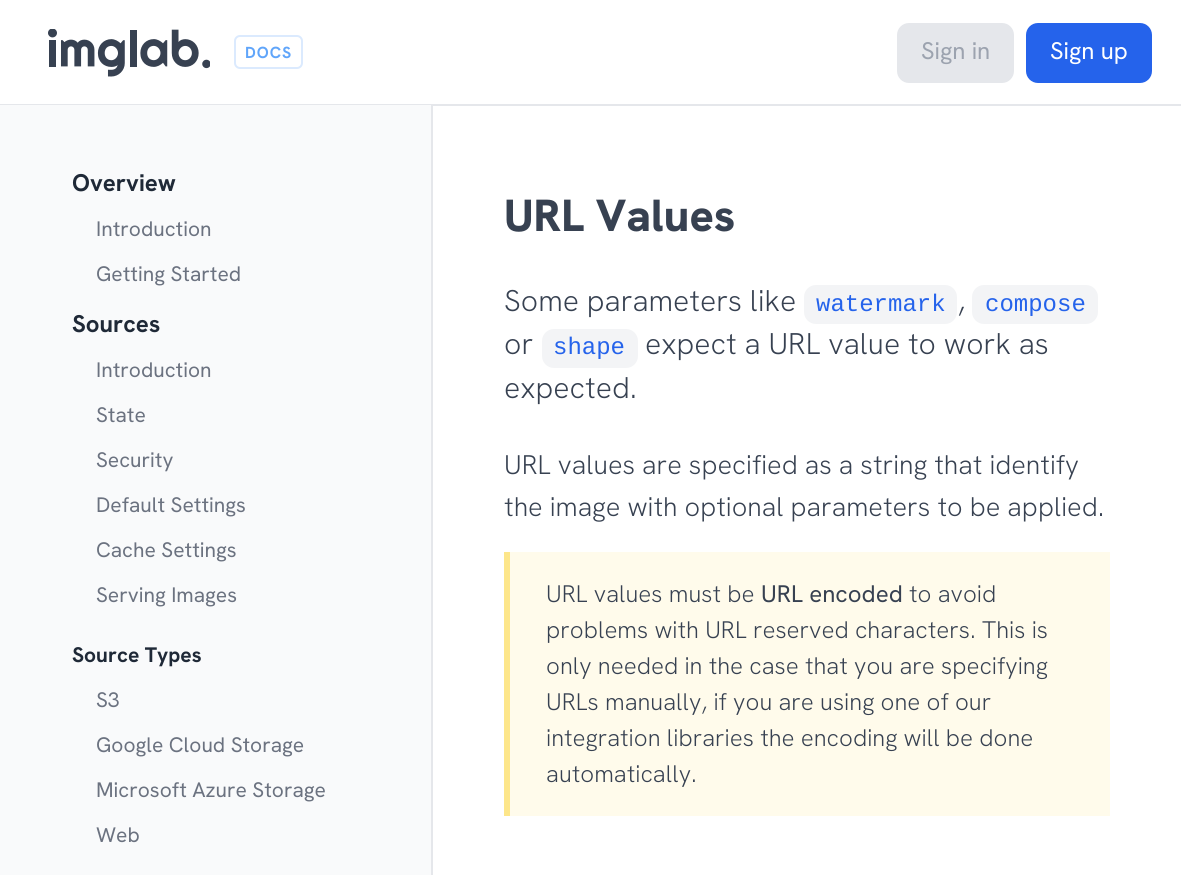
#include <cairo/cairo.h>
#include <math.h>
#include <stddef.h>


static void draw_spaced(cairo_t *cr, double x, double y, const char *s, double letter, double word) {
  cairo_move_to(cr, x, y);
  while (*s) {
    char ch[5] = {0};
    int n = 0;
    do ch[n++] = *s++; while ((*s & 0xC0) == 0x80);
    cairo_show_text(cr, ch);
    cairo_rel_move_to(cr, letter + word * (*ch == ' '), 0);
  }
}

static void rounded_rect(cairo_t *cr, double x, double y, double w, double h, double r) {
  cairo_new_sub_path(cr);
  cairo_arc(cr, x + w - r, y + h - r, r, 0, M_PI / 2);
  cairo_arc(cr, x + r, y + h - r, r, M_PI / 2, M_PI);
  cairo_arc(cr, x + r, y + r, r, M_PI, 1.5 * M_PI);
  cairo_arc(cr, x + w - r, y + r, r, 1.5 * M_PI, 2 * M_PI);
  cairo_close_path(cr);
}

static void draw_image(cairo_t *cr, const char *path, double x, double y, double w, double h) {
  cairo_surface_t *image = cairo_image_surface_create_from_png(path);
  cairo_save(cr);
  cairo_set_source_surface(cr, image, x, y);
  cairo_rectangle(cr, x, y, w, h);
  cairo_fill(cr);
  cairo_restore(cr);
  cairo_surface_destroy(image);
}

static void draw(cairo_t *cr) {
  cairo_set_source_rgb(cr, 1, 1, 1);
  cairo_paint(cr);
  cairo_set_source_rgb(cr, 229 / 255.0, 231 / 255.0, 235 / 255.0);
  cairo_rectangle(cr, 0, 104, 1181, 2);
  cairo_fill(cr);
  draw_image(cr, "images/1.png", 48, 29, 162, 48);
  rounded_rect(cr, 235, 36, 67, 32, 5);
  cairo_set_source_rgb(cr, 219 / 255.0, 234 / 255.0, 254 / 255.0);
  cairo_stroke(cr);
  cairo_set_source_rgb(cr, 229 / 255.0, 231 / 255.0, 235 / 255.0);
  rounded_rect(cr, 897, 23, 117, 60, 12);
  cairo_fill(cr);
  cairo_set_source_rgb(cr, 37 / 255.0, 99 / 255.0, 235 / 255.0);
  rounded_rect(cr, 1026, 23, 126, 60, 12);
  cairo_fill(cr);
  cairo_set_source_rgb(cr, 249 / 255.0, 250 / 255.0, 251 / 255.0);
  cairo_rectangle(cr, 0, 105, 431, 770);
  cairo_fill(cr);
  cairo_set_source_rgb(cr, 229 / 255.0, 231 / 255.0, 235 / 255.0);
  cairo_rectangle(cr, 431, 105, 2, 770);
  cairo_fill(cr);
  cairo_set_source_rgb(cr, 243 / 255.0, 244 / 255.0, 246 / 255.0);
  rounded_rect(cr, 804, 285, 153, 39, 12);
  cairo_fill(cr);
  rounded_rect(cr, 972, 285, 126, 39, 12);
  cairo_fill(cr);
  rounded_rect(cr, 542, 329, 96, 39, 12);
  cairo_fill(cr);
  cairo_set_source_rgb(cr, 1, 251 / 255.0, 235 / 255.0);
  cairo_rectangle(cr, 510, 552, 600, 264);
  cairo_fill(cr);
  cairo_set_source_rgb(cr, 253 / 255.0, 230 / 255.0, 138 / 255.0);
  cairo_rectangle(cr, 504, 552, 6, 264);
  cairo_fill(cr);
  cairo_select_font_face(cr, "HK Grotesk", CAIRO_FONT_SLANT_NORMAL, CAIRO_FONT_WEIGHT_BOLD);
  cairo_set_font_size(cr, 16);
  cairo_set_source_rgb(cr, 96 / 255.0, 165 / 255.0, 250 / 255.0);
  draw_spaced(cr, 245, 58, "DOCS", 1, 0);
  cairo_select_font_face(cr, "HK Grotesk", CAIRO_FONT_SLANT_NORMAL, CAIRO_FONT_WEIGHT_NORMAL);
  cairo_set_font_size(cr, 24);
  cairo_set_source_rgb(cr, 156 / 255.0, 163 / 255.0, 175 / 255.0);
  cairo_move_to(cr, 921, 59);
  cairo_show_text(cr, "Sign in");
  cairo_set_source_rgb(cr, 1, 1, 1);
  cairo_move_to(cr, 1050, 59);
  cairo_show_text(cr, "Sign up");
  cairo_select_font_face(cr, "HK Grotesk", CAIRO_FONT_SLANT_NORMAL, CAIRO_FONT_WEIGHT_BOLD);
  cairo_set_source_rgb(cr, 31 / 255.0, 41 / 255.0, 55 / 255.0);
  cairo_move_to(cr, 72, 191);
  cairo_show_text(cr, "Overview");
  cairo_select_font_face(cr, "HK Grotesk", CAIRO_FONT_SLANT_NORMAL, CAIRO_FONT_WEIGHT_NORMAL);
  cairo_set_font_size(cr, 21);
  cairo_set_source_rgb(cr, 107 / 255.0, 114 / 255.0, 128 / 255.0);
  cairo_move_to(cr, 96, 236);
  cairo_show_text(cr, "Introduction");
  cairo_move_to(cr, 96, 281);
  cairo_show_text(cr, "Getting Started");
  cairo_select_font_face(cr, "HK Grotesk", CAIRO_FONT_SLANT_NORMAL, CAIRO_FONT_WEIGHT_BOLD);
  cairo_set_font_size(cr, 24);
  cairo_set_source_rgb(cr, 31 / 255.0, 41 / 255.0, 55 / 255.0);
  cairo_move_to(cr, 72, 332);
  cairo_show_text(cr, "Sources");
  cairo_select_font_face(cr, "HK Grotesk", CAIRO_FONT_SLANT_NORMAL, CAIRO_FONT_WEIGHT_NORMAL);
  cairo_set_font_size(cr, 21);
  cairo_set_source_rgb(cr, 107 / 255.0, 114 / 255.0, 128 / 255.0);
  cairo_move_to(cr, 96, 377);
  cairo_show_text(cr, "Introduction");
  cairo_move_to(cr, 96, 422);
  cairo_show_text(cr, "State");
  cairo_move_to(cr, 96, 467);
  cairo_show_text(cr, "Security");
  cairo_move_to(cr, 96, 512);
  cairo_show_text(cr, "Default Settings");
  cairo_move_to(cr, 96, 557);
  cairo_show_text(cr, "Cache Settings");
  cairo_move_to(cr, 96, 602);
  cairo_show_text(cr, "Serving Images");
  cairo_select_font_face(cr, "HK Grotesk", CAIRO_FONT_SLANT_NORMAL, CAIRO_FONT_WEIGHT_BOLD);
  cairo_set_source_rgb(cr, 31 / 255.0, 41 / 255.0, 55 / 255.0);
  cairo_move_to(cr, 72, 662);
  cairo_show_text(cr, "Source Types");
  cairo_select_font_face(cr, "HK Grotesk", CAIRO_FONT_SLANT_NORMAL, CAIRO_FONT_WEIGHT_NORMAL);
  cairo_set_source_rgb(cr, 107 / 255.0, 114 / 255.0, 128 / 255.0);
  cairo_move_to(cr, 96, 707);
  cairo_show_text(cr, "S3");
  cairo_move_to(cr, 96, 752);
  cairo_show_text(cr, "Google Cloud Storage");
  cairo_move_to(cr, 96, 797);
  cairo_show_text(cr, "Microsoft Azure Storage");
  cairo_move_to(cr, 96, 842);
  cairo_show_text(cr, "Web");
  cairo_select_font_face(cr, "HK Grotesk ExtraBold", CAIRO_FONT_SLANT_NORMAL, CAIRO_FONT_WEIGHT_NORMAL);
  cairo_set_font_size(cr, 45);
  cairo_set_source_rgb(cr, 55 / 255.0, 65 / 255.0, 81 / 255.0);
  cairo_move_to(cr, 504, 231);
  cairo_show_text(cr, "URL Values");
  cairo_select_font_face(cr, "HK Grotesk Light", CAIRO_FONT_SLANT_NORMAL, CAIRO_FONT_WEIGHT_NORMAL);
  cairo_set_font_size(cr, 30);
  cairo_move_to(cr, 504, 311);
  cairo_show_text(cr, "Some parameters like");
  cairo_select_font_face(cr, "Liberation Mono", CAIRO_FONT_SLANT_NORMAL, CAIRO_FONT_WEIGHT_NORMAL);
  cairo_set_font_size(cr, 24);
  cairo_set_source_rgb(cr, 37 / 255.0, 99 / 255.0, 235 / 255.0);
  cairo_move_to(cr, 816, 311);
  cairo_show_text(cr, "watermark");
  cairo_select_font_face(cr, "HK Grotesk Light", CAIRO_FONT_SLANT_NORMAL, CAIRO_FONT_WEIGHT_NORMAL);
  cairo_set_font_size(cr, 30);
  cairo_set_source_rgb(cr, 55 / 255.0, 65 / 255.0, 81 / 255.0);
  cairo_move_to(cr, 958, 311);
  cairo_show_text(cr, ",");
  cairo_select_font_face(cr, "Liberation Mono", CAIRO_FONT_SLANT_NORMAL, CAIRO_FONT_WEIGHT_NORMAL);
  cairo_set_font_size(cr, 24);
  cairo_set_source_rgb(cr, 37 / 255.0, 99 / 255.0, 235 / 255.0);
  cairo_move_to(cr, 985, 311);
  cairo_show_text(cr, "compose");
  cairo_select_font_face(cr, "HK Grotesk Light", CAIRO_FONT_SLANT_NORMAL, CAIRO_FONT_WEIGHT_NORMAL);
  cairo_set_font_size(cr, 30);
  cairo_set_source_rgb(cr, 55 / 255.0, 65 / 255.0, 81 / 255.0);
  cairo_move_to(cr, 504, 354);
  cairo_show_text(cr, "or");
  cairo_select_font_face(cr, "Liberation Mono", CAIRO_FONT_SLANT_NORMAL, CAIRO_FONT_WEIGHT_NORMAL);
  cairo_set_font_size(cr, 24);
  cairo_set_source_rgb(cr, 37 / 255.0, 99 / 255.0, 235 / 255.0);
  cairo_move_to(cr, 553, 354);
  cairo_show_text(cr, "shape");
  cairo_select_font_face(cr, "HK Grotesk Light", CAIRO_FONT_SLANT_NORMAL, CAIRO_FONT_WEIGHT_NORMAL);
  cairo_set_font_size(cr, 30);
  cairo_set_source_rgb(cr, 55 / 255.0, 65 / 255.0, 81 / 255.0);
  cairo_move_to(cr, 645, 354);
  cairo_show_text(cr, "expect a URL value to work as");
  cairo_move_to(cr, 504, 398);
  cairo_show_text(cr, "expected.");
  cairo_set_font_size(cr, 27);
  cairo_move_to(cr, 504, 474);
  cairo_show_text(cr, "URL values are specified as a string that identify");
  cairo_move_to(cr, 504, 516);
  cairo_show_text(cr, "the image with optional parameters to be applied.");
  cairo_set_font_size(cr, 24);
  cairo_move_to(cr, 546, 602);
  cairo_show_text(cr, "URL values must be");
  cairo_select_font_face(cr, "HK Grotesk", CAIRO_FONT_SLANT_NORMAL, CAIRO_FONT_WEIGHT_NORMAL);
  cairo_move_to(cr, 761, 602);
  cairo_show_text(cr, "URL encoded");
  cairo_select_font_face(cr, "HK Grotesk Light", CAIRO_FONT_SLANT_NORMAL, CAIRO_FONT_WEIGHT_NORMAL);
  cairo_move_to(cr, 909, 602);
  cairo_show_text(cr, "to avoid");
  cairo_move_to(cr, 546, 638);
  cairo_show_text(cr, "problems with URL reserved characters. This is");
  cairo_move_to(cr, 546, 674);
  cairo_show_text(cr, "only needed in the case that you are specifying");
  cairo_move_to(cr, 546, 710);
  cairo_show_text(cr, "URLs manually, if you are using one of our");
  cairo_move_to(cr, 546, 746);
  cairo_show_text(cr, "integration libraries the encoding will be done");
  cairo_move_to(cr, 546, 782);
  cairo_show_text(cr, "automatically.");
}

int main(void) {
  cairo_surface_t *surface = cairo_image_surface_create(CAIRO_FORMAT_RGB24, 1181, 875);
  cairo_t *cr = cairo_create(surface);
  cairo_font_options_t *options = cairo_font_options_create();
  cairo_font_options_set_hint_metrics(options, CAIRO_HINT_METRICS_OFF);
  cairo_font_options_set_hint_style(options, CAIRO_HINT_STYLE_NONE);
  cairo_set_font_options(cr, options);
  cairo_set_miter_limit(cr, 4);
  draw(cr);
  cairo_surface_write_to_png(surface, "out.png");
  cairo_font_options_destroy(options);
  cairo_destroy(cr);
  cairo_surface_destroy(surface);
  return 0;
}
